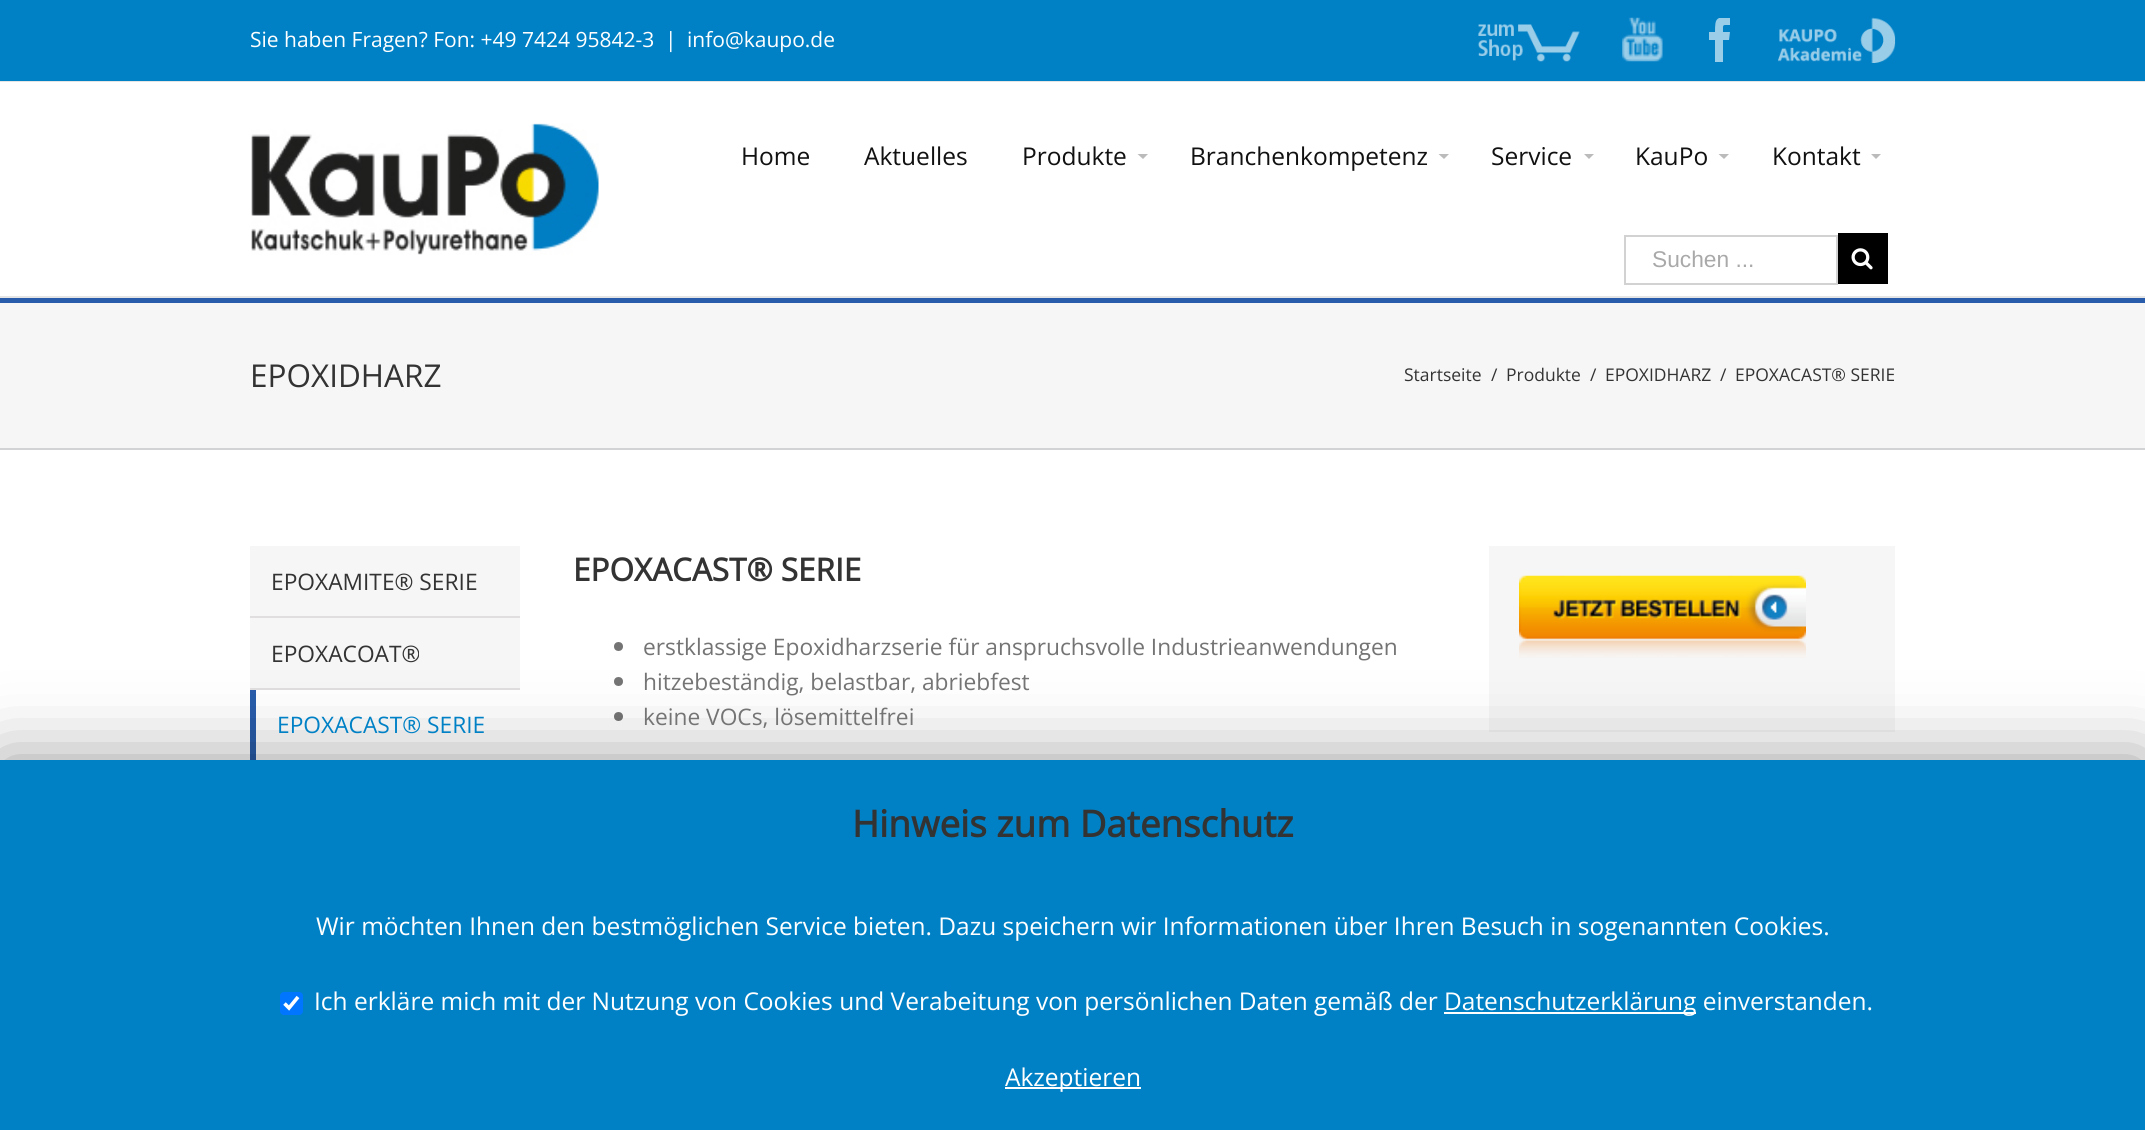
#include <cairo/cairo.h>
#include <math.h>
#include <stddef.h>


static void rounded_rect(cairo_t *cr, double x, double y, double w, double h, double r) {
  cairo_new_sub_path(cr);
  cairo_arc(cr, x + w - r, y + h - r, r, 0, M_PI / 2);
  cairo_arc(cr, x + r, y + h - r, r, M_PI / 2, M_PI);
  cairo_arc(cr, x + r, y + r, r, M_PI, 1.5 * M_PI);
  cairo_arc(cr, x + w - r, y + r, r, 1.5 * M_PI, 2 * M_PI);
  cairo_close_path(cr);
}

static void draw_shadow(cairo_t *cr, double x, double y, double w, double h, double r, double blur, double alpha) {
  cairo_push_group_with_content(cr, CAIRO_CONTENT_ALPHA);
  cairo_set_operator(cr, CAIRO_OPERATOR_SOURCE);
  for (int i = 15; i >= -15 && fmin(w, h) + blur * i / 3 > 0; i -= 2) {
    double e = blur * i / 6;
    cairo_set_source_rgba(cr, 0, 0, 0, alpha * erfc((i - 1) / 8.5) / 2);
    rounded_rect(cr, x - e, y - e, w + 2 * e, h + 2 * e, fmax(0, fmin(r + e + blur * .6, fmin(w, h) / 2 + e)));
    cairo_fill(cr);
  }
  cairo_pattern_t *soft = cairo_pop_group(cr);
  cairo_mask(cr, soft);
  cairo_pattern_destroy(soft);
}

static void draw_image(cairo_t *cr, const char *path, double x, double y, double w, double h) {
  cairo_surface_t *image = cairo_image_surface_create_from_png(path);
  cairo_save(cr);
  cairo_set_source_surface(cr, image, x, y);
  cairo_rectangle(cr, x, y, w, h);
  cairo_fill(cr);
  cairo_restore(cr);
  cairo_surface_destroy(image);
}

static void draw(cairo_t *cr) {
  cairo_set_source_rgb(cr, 1, 1, 1);
  cairo_paint(cr);
  cairo_set_source_rgb(cr, 0, 129 / 255.0, 198 / 255.0);
  cairo_rectangle(cr, 0, 0, 2145, 81);
  cairo_fill(cr);
  cairo_set_source_rgb(cr, 229 / 255.0, 229 / 255.0, 229 / 255.0);
  cairo_rectangle(cr, 0, 81, 2145, 1);
  cairo_fill(cr);
  draw_image(cr, "images/1.png", 1478, 24, 102, 38);
  draw_image(cr, "images/2.png", 1622, 17, 41, 45);
  cairo_save(cr);
  cairo_rectangle(cr, 1474, 18, 421, 63);
  cairo_clip(cr);
  cairo_set_source_rgb(cr, 153 / 255.0, 205 / 255.0, 232 / 255.0);
  cairo_new_path(cr);
  cairo_move_to(cr, 1723, 62);
  cairo_line_to(cr, 1715, 62);
  cairo_line_to(cr, 1715, 40);
  cairo_line_to(cr, 1709, 40);
  cairo_line_to(cr, 1709, 32);
  cairo_line_to(cr, 1715, 32);
  cairo_curve_to(cr, 1715, 18, 1716, 17, 1730, 17);
  cairo_line_to(cr, 1730, 25);
  cairo_curve_to(cr, 1722, 25, 1723, 24, 1723, 32);
  cairo_line_to(cr, 1730, 32);
  cairo_line_to(cr, 1729, 40);
  cairo_line_to(cr, 1723, 40);
  cairo_close_path(cr);
  cairo_fill(cr);
  cairo_restore(cr);
  draw_image(cr, "images/3.png", 1778, 17, 118, 46);
  cairo_rectangle(cr, 0, 296, 2145, 2);
  cairo_fill(cr);
  draw_image(cr, "images/4.png", 251, 123, 348, 132);
  cairo_set_source_rgb(cr, 187 / 255.0, 187 / 255.0, 187 / 255.0);
  cairo_new_path(cr);
  cairo_move_to(cr, 1137.5, 154);
  cairo_line_to(cr, 1148, 154);
  cairo_line_to(cr, 1143, 159);
  cairo_close_path(cr);
  cairo_fill(cr);
  cairo_new_path(cr);
  cairo_move_to(cr, 1438.5, 154);
  cairo_line_to(cr, 1449, 154);
  cairo_line_to(cr, 1444, 159);
  cairo_close_path(cr);
  cairo_fill(cr);
  cairo_new_path(cr);
  cairo_move_to(cr, 1584, 154);
  cairo_line_to(cr, 1594, 154);
  cairo_line_to(cr, 1589, 159);
  cairo_close_path(cr);
  cairo_fill(cr);
  cairo_new_path(cr);
  cairo_move_to(cr, 1718.5, 154);
  cairo_line_to(cr, 1729, 154);
  cairo_line_to(cr, 1724, 159);
  cairo_close_path(cr);
  cairo_fill(cr);
  cairo_new_path(cr);
  cairo_move_to(cr, 1871, 154);
  cairo_line_to(cr, 1881, 154);
  cairo_line_to(cr, 1876, 159);
  cairo_close_path(cr);
  cairo_fill(cr);
  cairo_rectangle(cr, 1625, 236, 212, 48);
  cairo_set_source_rgb(cr, 210 / 255.0, 210 / 255.0, 210 / 255.0);
  cairo_stroke(cr);
  cairo_set_source_rgb(cr, 0, 0, 0);
  cairo_rectangle(cr, 1838, 233, 50, 51);
  cairo_fill(cr);
  draw_image(cr, "images/5.png", 1851, 248, 22, 22);
  cairo_set_source_rgb(cr, 246 / 255.0, 246 / 255.0, 246 / 255.0);
  cairo_rectangle(cr, 0, 303, 2145, 145);
  cairo_fill(cr);
  cairo_set_source_rgb(cr, 41 / 255.0, 92 / 255.0, 170 / 255.0);
  cairo_rectangle(cr, 0, 298, 2145, 5);
  cairo_fill(cr);
  cairo_set_source_rgb(cr, 210 / 255.0, 211 / 255.0, 212 / 255.0);
  cairo_rectangle(cr, 0, 448, 2145, 2);
  cairo_fill(cr);
  cairo_set_source_rgb(cr, 246 / 255.0, 246 / 255.0, 246 / 255.0);
  cairo_rectangle(cr, 250, 546, 270, 142);
  cairo_fill(cr);
  cairo_set_source_rgb(cr, 224 / 255.0, 222 / 255.0, 222 / 255.0);
  cairo_rectangle(cr, 250, 616, 270, 2);
  cairo_fill(cr);
  cairo_rectangle(cr, 250, 688, 270, 2);
  cairo_fill(cr);
  cairo_set_source_rgb(cr, 41 / 255.0, 92 / 255.0, 170 / 255.0);
  cairo_new_path(cr);
  cairo_move_to(cr, 250, 761);
  cairo_line_to(cr, 250, 690);
  cairo_line_to(cr, 256, 690);
  cairo_line_to(cr, 256, 760);
  cairo_close_path(cr);
  cairo_fill(cr);
  cairo_set_source_rgb(cr, 116 / 255.0, 116 / 255.0, 116 / 255.0);
  cairo_arc(cr, 618.5, 646.5, 4.5, 0, 2 * M_PI);
  cairo_fill(cr);
  cairo_arc(cr, 618.5, 681.5, 4.5, 0, 2 * M_PI);
  cairo_fill(cr);
  cairo_arc(cr, 618.5, 716.5, 4.5, 0, 2 * M_PI);
  cairo_fill(cr);
  cairo_set_source_rgb(cr, 246 / 255.0, 246 / 255.0, 246 / 255.0);
  cairo_rectangle(cr, 1489, 546, 406, 186);
  cairo_fill(cr);
  draw_image(cr, "images/6.png", 1519, 575, 287, 83);
  cairo_set_source_rgb(cr, 0, 0, 0);
  draw_shadow(cr, 0, 760, 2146, 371, 0, 36, 0.4);
  cairo_set_source_rgb(cr, 0, 129 / 255.0, 198 / 255.0);
  cairo_rectangle(cr, 0, 760, 2145, 370);
  cairo_fill(cr);
  cairo_set_source_rgb(cr, 0, 117 / 255.0, 1);
  rounded_rect(cr, 280, 992, 23, 23, 4);
  cairo_fill(cr);
  cairo_new_path(cr);
  cairo_move_to(cr, 284.5, 1003.5);
  cairo_line_to(cr, 289, 1008);
  cairo_line_to(cr, 298, 997);
  cairo_set_source_rgb(cr, 1, 1, 1);
  cairo_set_line_width(cr, 3.6);
  cairo_stroke(cr);
  cairo_rectangle(cr, 1444, 1012, 252, 2);
  cairo_fill(cr);
  cairo_rectangle(cr, 1005, 1087, 136, 2);
  cairo_fill(cr);
  cairo_select_font_face(cr, "Open Sans", CAIRO_FONT_SLANT_NORMAL, CAIRO_FONT_WEIGHT_NORMAL);
  cairo_set_font_size(cr, 21);
  cairo_move_to(cr, 250, 47);
  cairo_show_text(cr, "Sie haben Fragen? Fon: +49 7424 95842-3");
  cairo_move_to(cr, 665, 47);
  cairo_show_text(cr, "|");
  cairo_move_to(cr, 687, 47);
  cairo_show_text(cr, "info@kaupo.de");
  cairo_set_font_size(cr, 24.5);
  cairo_set_source_rgb(cr, 17 / 255.0, 17 / 255.0, 17 / 255.0);
  cairo_move_to(cr, 741, 165);
  cairo_show_text(cr, "Home");
  cairo_move_to(cr, 864, 165);
  cairo_show_text(cr, "Aktuelles");
  cairo_move_to(cr, 1022, 165);
  cairo_show_text(cr, "Produkte");
  cairo_move_to(cr, 1190, 165);
  cairo_show_text(cr, "Branchenkompetenz");
  cairo_move_to(cr, 1491, 165);
  cairo_show_text(cr, "Service");
  cairo_move_to(cr, 1635, 165);
  cairo_show_text(cr, "KauPo");
  cairo_move_to(cr, 1772, 165);
  cairo_show_text(cr, "Kontakt");
  cairo_select_font_face(cr, "Liberation Sans", CAIRO_FONT_SLANT_NORMAL, CAIRO_FONT_WEIGHT_NORMAL);
  cairo_set_font_size(cr, 22.75);
  cairo_set_source_rgb(cr, 170 / 255.0, 169 / 255.0, 169 / 255.0);
  cairo_move_to(cr, 1652, 267);
  cairo_show_text(cr, "Suchen ...");
  cairo_select_font_face(cr, "Open Sans", CAIRO_FONT_SLANT_NORMAL, CAIRO_FONT_WEIGHT_NORMAL);
  cairo_set_font_size(cr, 31.5);
  cairo_set_source_rgb(cr, 51 / 255.0, 51 / 255.0, 51 / 255.0);
  cairo_move_to(cr, 250, 387);
  cairo_show_text(cr, "EPOXIDHARZ");
  cairo_set_font_size(cr, 17.5);
  cairo_move_to(cr, 1404, 381);
  cairo_show_text(cr, "Startseite");
  cairo_move_to(cr, 1491, 381);
  cairo_show_text(cr, "/");
  cairo_move_to(cr, 1506, 381);
  cairo_show_text(cr, "Produkte");
  cairo_move_to(cr, 1590, 381);
  cairo_show_text(cr, "/");
  cairo_move_to(cr, 1605, 381);
  cairo_show_text(cr, "EPOXIDHARZ");
  cairo_move_to(cr, 1720, 381);
  cairo_show_text(cr, "/");
  cairo_move_to(cr, 1735, 381);
  cairo_show_text(cr, "EPOXACAST® SERIE");
  cairo_set_font_size(cr, 22.75);
  cairo_move_to(cr, 271, 590);
  cairo_show_text(cr, "EPOXAMITE® SERIE");
  cairo_move_to(cr, 271, 662);
  cairo_show_text(cr, "EPOXACOAT®");
  cairo_set_source_rgb(cr, 0, 129 / 255.0, 198 / 255.0);
  cairo_move_to(cr, 277, 733);
  cairo_show_text(cr, "EPOXACAST® SERIE");
  cairo_select_font_face(cr, "Open Sans", CAIRO_FONT_SLANT_NORMAL, CAIRO_FONT_WEIGHT_BOLD);
  cairo_set_font_size(cr, 31.5);
  cairo_set_source_rgb(cr, 51 / 255.0, 51 / 255.0, 51 / 255.0);
  cairo_move_to(cr, 573, 581);
  cairo_show_text(cr, "EPOXACAST® SERIE");
  cairo_select_font_face(cr, "Open Sans", CAIRO_FONT_SLANT_NORMAL, CAIRO_FONT_WEIGHT_NORMAL);
  cairo_set_font_size(cr, 22.75);
  cairo_set_source_rgb(cr, 116 / 255.0, 116 / 255.0, 116 / 255.0);
  cairo_move_to(cr, 643, 655);
  cairo_show_text(cr, "erstklassige Epoxidharzserie für anspruchsvolle Industrieanwendungen");
  cairo_move_to(cr, 643, 690);
  cairo_show_text(cr, "hitzebeständig, belastbar, abriebfest");
  cairo_move_to(cr, 643, 725);
  cairo_show_text(cr, "keine VOCs, lösemittelfrei");
  cairo_select_font_face(cr, "Open Sans", CAIRO_FONT_SLANT_NORMAL, CAIRO_FONT_WEIGHT_BOLD);
  cairo_set_font_size(cr, 36.75);
  cairo_set_source_rgb(cr, 51 / 255.0, 51 / 255.0, 51 / 255.0);
  cairo_move_to(cr, 852, 837);
  cairo_show_text(cr, "Hinweis zum Datenschutz");
  cairo_select_font_face(cr, "Open Sans", CAIRO_FONT_SLANT_NORMAL, CAIRO_FONT_WEIGHT_NORMAL);
  cairo_set_font_size(cr, 24.5);
  cairo_set_source_rgb(cr, 1, 1, 1);
  cairo_move_to(cr, 316, 935);
  cairo_show_text(cr, "Wir möchten Ihnen den bestmöglichen Service bieten. Dazu speichern wir Informationen über Ihren Besuch in sogenannten Cookies.");
  cairo_move_to(cr, 314, 1010);
  cairo_show_text(cr, "Ich erkläre mich mit der Nutzung von Cookies und Verabeitung von persönlichen Daten gemäß der");
  cairo_move_to(cr, 1444, 1010);
  cairo_show_text(cr, "Datenschutzerklärung einverstanden.");
  cairo_move_to(cr, 1005, 1086);
  cairo_show_text(cr, "Akzeptieren");
}

int main(void) {
  cairo_surface_t *surface = cairo_image_surface_create(CAIRO_FORMAT_RGB24, 2145, 1130);
  cairo_t *cr = cairo_create(surface);
  cairo_font_options_t *options = cairo_font_options_create();
  cairo_font_options_set_hint_metrics(options, CAIRO_HINT_METRICS_OFF);
  cairo_font_options_set_hint_style(options, CAIRO_HINT_STYLE_NONE);
  cairo_set_font_options(cr, options);
  cairo_set_miter_limit(cr, 4);
  draw(cr);
  cairo_surface_write_to_png(surface, "out.png");
  cairo_font_options_destroy(options);
  cairo_destroy(cr);
  cairo_surface_destroy(surface);
  return 0;
}
